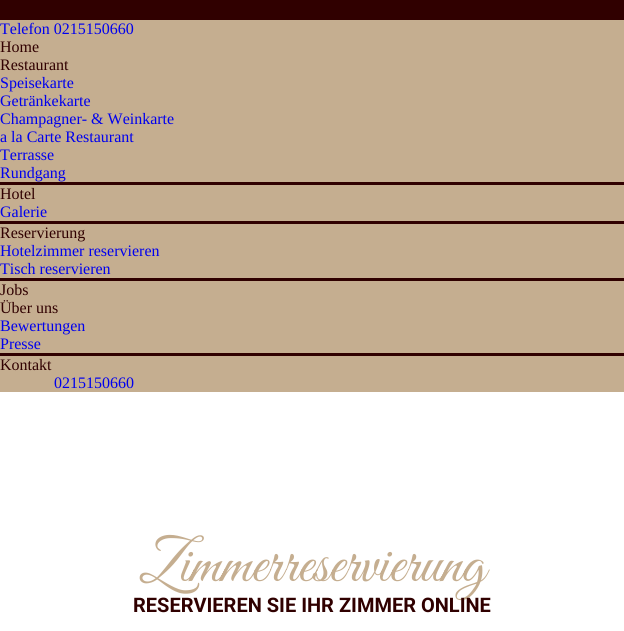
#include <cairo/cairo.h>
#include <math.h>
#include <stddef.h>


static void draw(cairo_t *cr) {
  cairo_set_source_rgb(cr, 1, 1, 1);
  cairo_paint(cr);
  cairo_set_source_rgb(cr, 48 / 255.0, 0, 0);
  cairo_rectangle(cr, 0, 0, 624, 20);
  cairo_fill(cr);
  cairo_set_source_rgb(cr, 197 / 255.0, 174 / 255.0, 144 / 255.0);
  cairo_rectangle(cr, 0, 20, 624, 372);
  cairo_fill(cr);
  cairo_set_source_rgb(cr, 48 / 255.0, 0, 0);
  cairo_rectangle(cr, 0, 182, 624, 3);
  cairo_fill(cr);
  cairo_rectangle(cr, 0, 221, 624, 3);
  cairo_fill(cr);
  cairo_rectangle(cr, 0, 278, 624, 3);
  cairo_fill(cr);
  cairo_rectangle(cr, 0, 353, 624, 3);
  cairo_fill(cr);
  cairo_select_font_face(cr, "Liberation Serif", CAIRO_FONT_SLANT_NORMAL, CAIRO_FONT_WEIGHT_NORMAL);
  cairo_set_font_size(cr, 16);
  cairo_set_source_rgb(cr, 0, 0, 238 / 255.0);
  cairo_move_to(cr, 0, 34);
  cairo_show_text(cr, "Telefon 0215150660");
  cairo_set_source_rgb(cr, 48 / 255.0, 0, 0);
  cairo_move_to(cr, 0, 52);
  cairo_show_text(cr, "Home");
  cairo_move_to(cr, 0, 70);
  cairo_show_text(cr, "Restaurant");
  cairo_set_source_rgb(cr, 0, 0, 238 / 255.0);
  cairo_move_to(cr, 0, 88);
  cairo_show_text(cr, "Speisekarte");
  cairo_move_to(cr, 0, 106);
  cairo_show_text(cr, "Getränkekarte");
  cairo_move_to(cr, 0, 124);
  cairo_show_text(cr, "Champagner- & Weinkarte");
  cairo_move_to(cr, 0, 142);
  cairo_show_text(cr, "a la Carte Restaurant");
  cairo_move_to(cr, 0, 160);
  cairo_show_text(cr, "Terrasse");
  cairo_move_to(cr, 0, 178);
  cairo_show_text(cr, "Rundgang");
  cairo_set_source_rgb(cr, 48 / 255.0, 0, 0);
  cairo_move_to(cr, 0, 199);
  cairo_show_text(cr, "Hotel");
  cairo_set_source_rgb(cr, 0, 0, 238 / 255.0);
  cairo_move_to(cr, 0, 217);
  cairo_show_text(cr, "Galerie");
  cairo_set_source_rgb(cr, 48 / 255.0, 0, 0);
  cairo_move_to(cr, 0, 238);
  cairo_show_text(cr, "Reservierung");
  cairo_set_source_rgb(cr, 0, 0, 238 / 255.0);
  cairo_move_to(cr, 0, 256);
  cairo_show_text(cr, "Hotelzimmer reservieren");
  cairo_move_to(cr, 0, 274);
  cairo_show_text(cr, "Tisch reservieren");
  cairo_set_source_rgb(cr, 48 / 255.0, 0, 0);
  cairo_move_to(cr, 0, 295);
  cairo_show_text(cr, "Jobs");
  cairo_move_to(cr, 0, 313);
  cairo_show_text(cr, "Über uns");
  cairo_set_source_rgb(cr, 0, 0, 238 / 255.0);
  cairo_move_to(cr, 0, 331);
  cairo_show_text(cr, "Bewertungen");
  cairo_move_to(cr, 0, 349);
  cairo_show_text(cr, "Presse");
  cairo_set_source_rgb(cr, 48 / 255.0, 0, 0);
  cairo_move_to(cr, 0, 370);
  cairo_show_text(cr, "Kontakt");
  cairo_set_source_rgb(cr, 0, 0, 238 / 255.0);
  cairo_move_to(cr, 54, 388);
  cairo_show_text(cr, "0215150660");
  cairo_select_font_face(cr, "Great Vibes", CAIRO_FONT_SLANT_NORMAL, CAIRO_FONT_WEIGHT_NORMAL);
  cairo_set_font_size(cr, 60);
  cairo_set_source_rgb(cr, 197 / 255.0, 174 / 255.0, 144 / 255.0);
  cairo_move_to(cr, 139, 581);
  cairo_show_text(cr, "Zimmerreservierung");
  cairo_select_font_face(cr, "Roboto", CAIRO_FONT_SLANT_NORMAL, CAIRO_FONT_WEIGHT_BOLD);
  cairo_set_font_size(cr, 20);
  cairo_set_source_rgb(cr, 48 / 255.0, 0, 0);
  cairo_move_to(cr, 133, 612);
  cairo_show_text(cr, "RESERVIEREN SIE IHR ZIMMER ONLINE");
}

int main(void) {
  cairo_surface_t *surface = cairo_image_surface_create(CAIRO_FORMAT_RGB24, 624, 631);
  cairo_t *cr = cairo_create(surface);
  cairo_font_options_t *options = cairo_font_options_create();
  cairo_font_options_set_hint_metrics(options, CAIRO_HINT_METRICS_OFF);
  cairo_font_options_set_hint_style(options, CAIRO_HINT_STYLE_NONE);
  cairo_set_font_options(cr, options);
  cairo_set_miter_limit(cr, 4);
  draw(cr);
  cairo_surface_write_to_png(surface, "out.png");
  cairo_font_options_destroy(options);
  cairo_destroy(cr);
  cairo_surface_destroy(surface);
  return 0;
}
